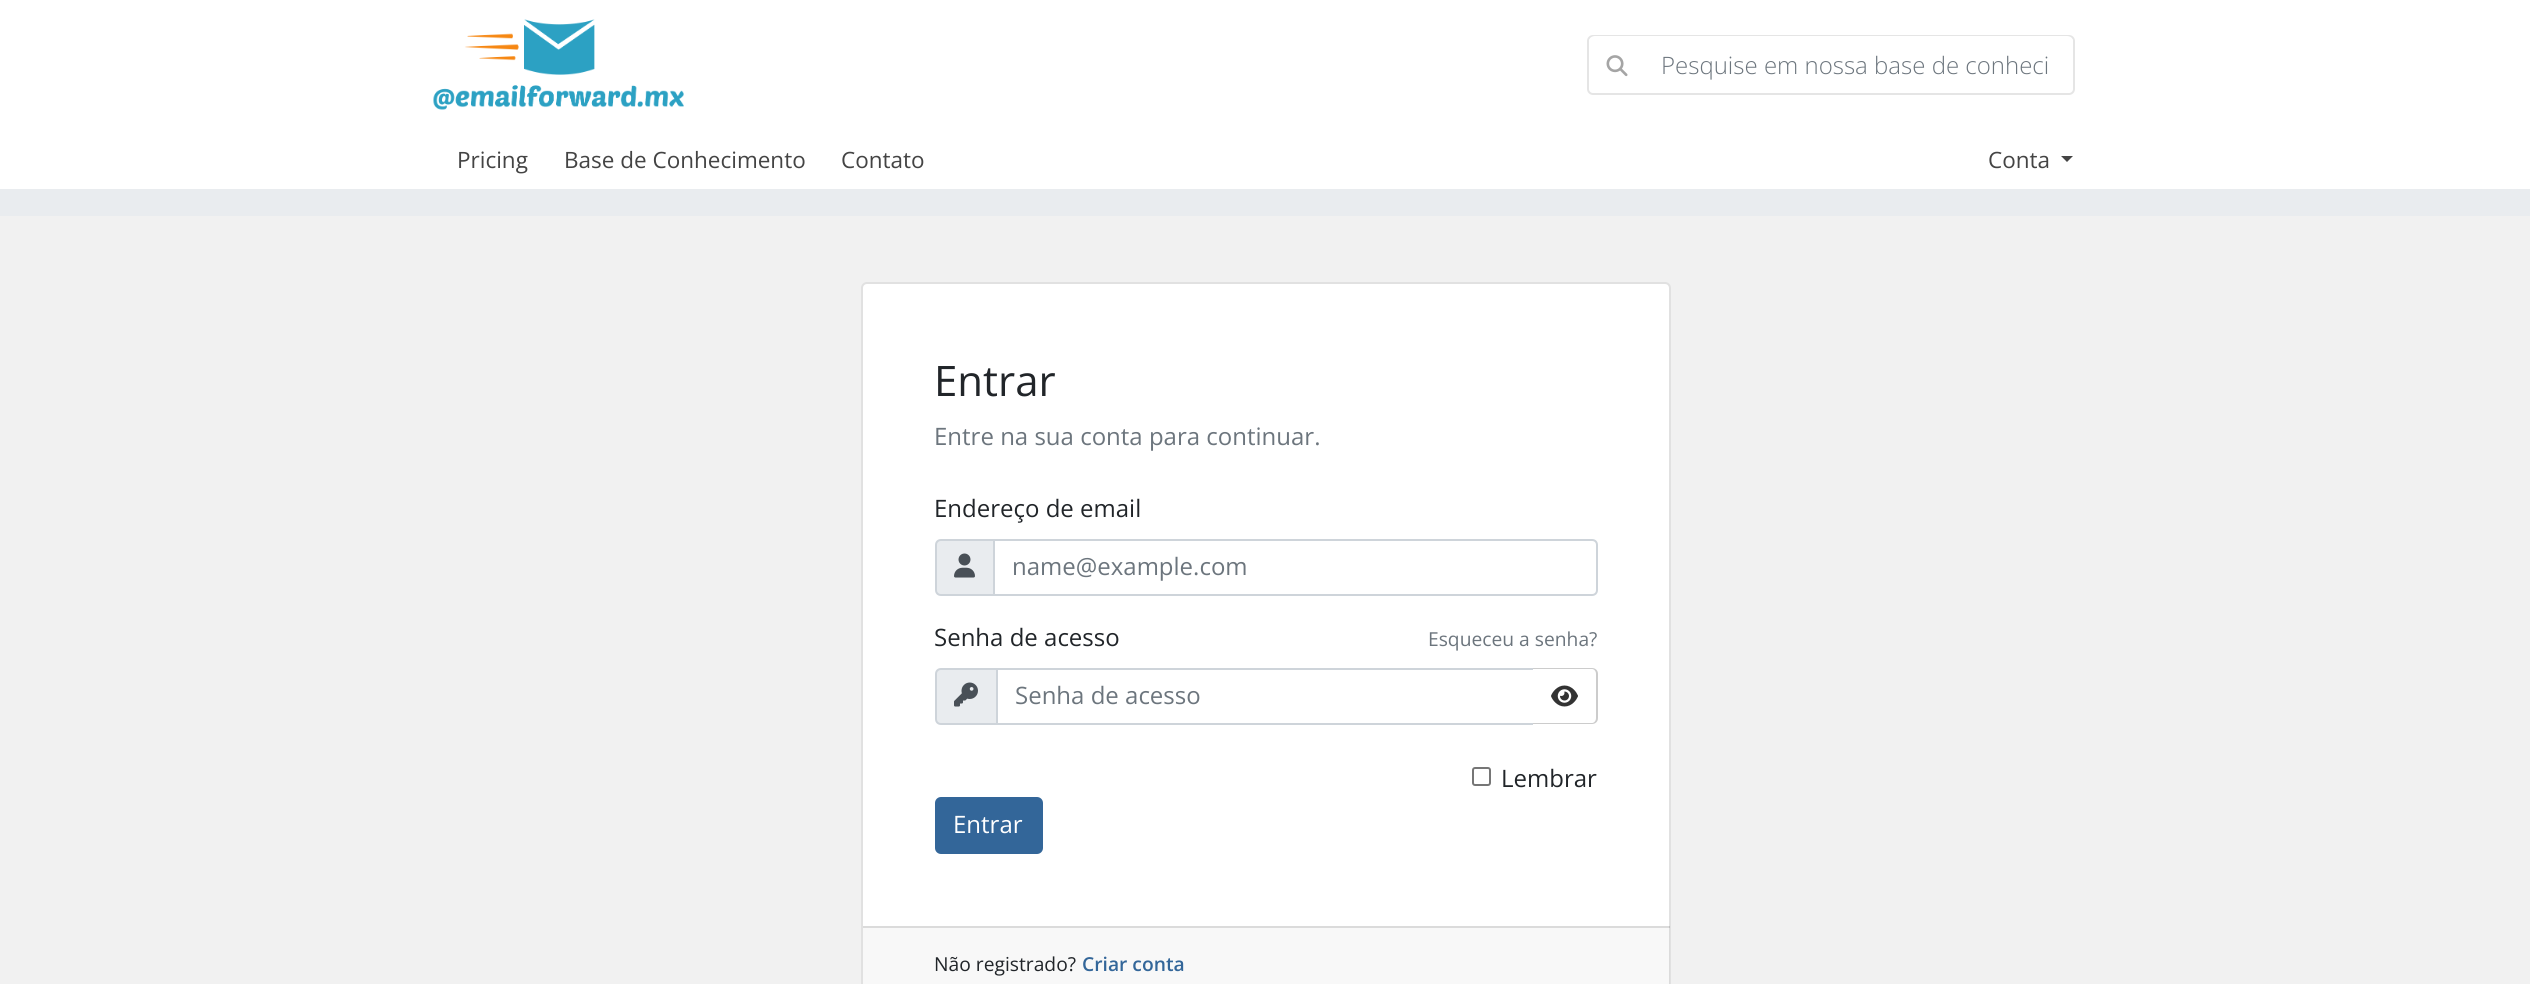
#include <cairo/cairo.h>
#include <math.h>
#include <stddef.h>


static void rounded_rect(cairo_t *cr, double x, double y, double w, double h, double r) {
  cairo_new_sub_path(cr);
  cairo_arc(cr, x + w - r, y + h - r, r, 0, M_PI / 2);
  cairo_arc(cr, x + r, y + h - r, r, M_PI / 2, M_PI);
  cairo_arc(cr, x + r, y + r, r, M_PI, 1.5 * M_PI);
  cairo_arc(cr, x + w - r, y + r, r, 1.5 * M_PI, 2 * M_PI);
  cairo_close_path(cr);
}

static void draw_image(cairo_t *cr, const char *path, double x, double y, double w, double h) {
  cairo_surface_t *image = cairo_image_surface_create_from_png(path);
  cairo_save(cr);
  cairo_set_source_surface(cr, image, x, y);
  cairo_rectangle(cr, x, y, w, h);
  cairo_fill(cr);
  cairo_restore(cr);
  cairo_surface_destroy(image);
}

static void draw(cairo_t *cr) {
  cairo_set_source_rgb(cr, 241 / 255.0, 241 / 255.0, 241 / 255.0);
  cairo_paint(cr);
  cairo_set_source_rgb(cr, 1, 1, 1);
  cairo_rectangle(cr, 0, 0, 2530, 189);
  cairo_fill(cr);
  draw_image(cr, "images/1.png", 433, 19, 251, 91);
  rounded_rect(cr, 1588, 36, 486, 58, 5);
  cairo_set_source_rgb(cr, 229 / 255.0, 229 / 255.0, 229 / 255.0);
  cairo_stroke(cr);
  cairo_set_source_rgb(cr, 1, 1, 1);
  cairo_new_path(cr);
  cairo_move_to(cr, 1644, 36);
  cairo_line_to(cr, 2067, 36);
  cairo_curve_to(cr, 2070.5, 36, 2073, 38.5, 2073, 42);
  cairo_line_to(cr, 2073, 87);
  cairo_curve_to(cr, 2073, 90.5, 2070.5, 93, 2067, 93);
  cairo_line_to(cr, 1644, 93);
  cairo_close_path(cr);
  cairo_fill(cr);
  cairo_new_path(cr);
  cairo_move_to(cr, 1595, 36);
  cairo_line_to(cr, 1646, 36);
  cairo_line_to(cr, 1646, 93);
  cairo_line_to(cr, 1595, 93);
  cairo_curve_to(cr, 1591.5, 93, 1589, 90.5, 1589, 87);
  cairo_line_to(cr, 1589, 42);
  cairo_curve_to(cr, 1589, 38.5, 1591.5, 36, 1595, 36);
  cairo_close_path(cr);
  cairo_fill(cr);
  draw_image(cr, "images/2.png", 1606, 55, 22, 22);
  cairo_set_source_rgb(cr, 68 / 255.0, 68 / 255.0, 68 / 255.0);
  cairo_new_path(cr);
  cairo_move_to(cr, 2061, 156);
  cairo_line_to(cr, 2073, 156);
  cairo_line_to(cr, 2067, 162);
  cairo_close_path(cr);
  cairo_fill(cr);
  cairo_set_source_rgb(cr, 233 / 255.0, 236 / 255.0, 239 / 255.0);
  cairo_rectangle(cr, 0, 189, 2530, 27);
  cairo_fill(cr);
  cairo_set_source_rgb(cr, 1, 1, 1);
  rounded_rect(cr, 861, 282, 810, 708, 6);
  cairo_fill(cr);
  rounded_rect(cr, 862, 283, 808, 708, 5);
  cairo_set_source_rgba(cr, 0, 0, 0, 0.12);
  cairo_stroke(cr);
  cairo_set_source_rgb(cr, 233 / 255.0, 236 / 255.0, 239 / 255.0);
  cairo_new_path(cr);
  cairo_move_to(cr, 941, 540);
  cairo_line_to(cr, 994, 540);
  cairo_line_to(cr, 994, 595);
  cairo_line_to(cr, 941, 595);
  cairo_curve_to(cr, 938, 595, 936, 593, 936, 590);
  cairo_line_to(cr, 936, 545);
  cairo_curve_to(cr, 936, 542, 938, 540, 941, 540);
  cairo_close_path(cr);
  cairo_fill_preserve(cr);
  cairo_set_source_rgb(cr, 206 / 255.0, 212 / 255.0, 218 / 255.0);
  cairo_stroke(cr);
  draw_image(cr, "images/3.png", 954, 553, 21, 25);
  cairo_new_path(cr);
  cairo_move_to(cr, 994, 540);
  cairo_line_to(cr, 1592, 540);
  cairo_curve_to(cr, 1595, 540, 1597, 542, 1597, 545);
  cairo_line_to(cr, 1597, 590);
  cairo_curve_to(cr, 1597, 593, 1595, 595, 1592, 595);
  cairo_line_to(cr, 994, 595);
  cairo_close_path(cr);
  cairo_stroke(cr);
  cairo_set_source_rgb(cr, 233 / 255.0, 236 / 255.0, 239 / 255.0);
  cairo_new_path(cr);
  cairo_move_to(cr, 941, 669);
  cairo_line_to(cr, 997, 669);
  cairo_line_to(cr, 997, 724);
  cairo_line_to(cr, 941, 724);
  cairo_curve_to(cr, 938, 724, 936, 722, 936, 719);
  cairo_line_to(cr, 936, 674);
  cairo_curve_to(cr, 936, 671, 938, 669, 941, 669);
  cairo_close_path(cr);
  cairo_fill_preserve(cr);
  cairo_set_source_rgb(cr, 206 / 255.0, 212 / 255.0, 218 / 255.0);
  cairo_stroke(cr);
  draw_image(cr, "images/4.png", 954, 682, 24, 25);
  cairo_rectangle(cr, 997, 669, 537, 55);
  cairo_stroke(cr);
  cairo_set_source_rgb(cr, 1, 1, 1);
  cairo_new_path(cr);
  cairo_move_to(cr, 1533, 668);
  cairo_line_to(cr, 1592, 668);
  cairo_curve_to(cr, 1595.5, 668, 1598, 670.5, 1598, 674);
  cairo_line_to(cr, 1598, 719);
  cairo_curve_to(cr, 1598, 722.5, 1595.5, 725, 1592, 725);
  cairo_line_to(cr, 1533, 725);
  cairo_close_path(cr);
  cairo_fill(cr);
  cairo_set_source_rgb(cr, 204 / 255.0, 204 / 255.0, 204 / 255.0);
  cairo_set_fill_rule(cr, CAIRO_FILL_RULE_EVEN_ODD);
  cairo_new_path(cr);
  cairo_move_to(cr, 1533, 668);
  cairo_line_to(cr, 1592, 668);
  cairo_curve_to(cr, 1595, 668, 1598, 670, 1598, 674);
  cairo_line_to(cr, 1598, 718);
  cairo_curve_to(cr, 1598, 722, 1595, 724, 1592, 724);
  cairo_line_to(cr, 1533, 724);
  cairo_close_path(cr);
  cairo_move_to(cr, 1533, 669);
  cairo_line_to(cr, 1592, 669);
  cairo_curve_to(cr, 1594, 669, 1596, 671, 1596, 674);
  cairo_line_to(cr, 1596, 718);
  cairo_curve_to(cr, 1596, 721, 1594, 723, 1592, 723);
  cairo_line_to(cr, 1533, 723);
  cairo_close_path(cr);
  cairo_fill(cr);
  draw_image(cr, "images/5.png", 1551, 685, 27, 22);
  rounded_rect(cr, 1473, 768, 17, 17, 2);
  cairo_set_source_rgb(cr, 118 / 255.0, 118 / 255.0, 118 / 255.0);
  cairo_stroke(cr);
  cairo_set_source_rgb(cr, 51 / 255.0, 102 / 255.0, 153 / 255.0);
  rounded_rect(cr, 936, 798, 106, 55, 5);
  cairo_fill_preserve(cr);
  cairo_stroke(cr);
  cairo_set_source_rgba(cr, 0, 0, 0, 0.03);
  cairo_rectangle(cr, 863, 926, 807, 58);
  cairo_fill(cr);
  cairo_set_source_rgba(cr, 0, 0, 0, 0.12);
  cairo_rectangle(cr, 863, 926, 807, 2);
  cairo_fill(cr);
  cairo_select_font_face(cr, "Open Sans Light", CAIRO_FONT_SLANT_NORMAL, CAIRO_FONT_WEIGHT_NORMAL);
  cairo_set_font_size(cr, 24);
  cairo_set_source_rgb(cr, 108 / 255.0, 117 / 255.0, 125 / 255.0);
  cairo_move_to(cr, 1661, 74);
  cairo_show_text(cr, "Pesquise em nossa base de conheci");
  cairo_select_font_face(cr, "Open Sans", CAIRO_FONT_SLANT_NORMAL, CAIRO_FONT_WEIGHT_NORMAL);
  cairo_set_font_size(cr, 22.5);
  cairo_set_source_rgb(cr, 68 / 255.0, 68 / 255.0, 68 / 255.0);
  cairo_move_to(cr, 457, 168);
  cairo_show_text(cr, "Pricing");
  cairo_move_to(cr, 564, 168);
  cairo_show_text(cr, "Base de Conhecimento");
  cairo_move_to(cr, 841, 168);
  cairo_show_text(cr, "Contato");
  cairo_move_to(cr, 1988, 168);
  cairo_show_text(cr, "Conta");
  cairo_set_font_size(cr, 42);
  cairo_set_source_rgb(cr, 33 / 255.0, 37 / 255.0, 41 / 255.0);
  cairo_move_to(cr, 934, 396);
  cairo_show_text(cr, "Entrar");
  cairo_set_font_size(cr, 24);
  cairo_set_source_rgb(cr, 108 / 255.0, 117 / 255.0, 125 / 255.0);
  cairo_move_to(cr, 934, 445);
  cairo_show_text(cr, "Entre na sua conta para continuar.");
  cairo_set_source_rgb(cr, 33 / 255.0, 37 / 255.0, 41 / 255.0);
  cairo_move_to(cr, 934, 517);
  cairo_show_text(cr, "Endereço de email");
  cairo_set_source_rgb(cr, 108 / 255.0, 117 / 255.0, 125 / 255.0);
  cairo_move_to(cr, 1012, 575);
  cairo_show_text(cr, "name@example.com");
  cairo_set_source_rgb(cr, 33 / 255.0, 37 / 255.0, 41 / 255.0);
  cairo_move_to(cr, 934, 646);
  cairo_show_text(cr, "Senha de acesso");
  cairo_set_font_size(cr, 19.25);
  cairo_set_source_rgb(cr, 108 / 255.0, 117 / 255.0, 125 / 255.0);
  cairo_move_to(cr, 1428, 646);
  cairo_show_text(cr, "Esqueceu a senha?");
  cairo_set_font_size(cr, 24);
  cairo_move_to(cr, 1015, 704);
  cairo_show_text(cr, "Senha de acesso");
  cairo_set_source_rgb(cr, 33 / 255.0, 37 / 255.0, 41 / 255.0);
  cairo_move_to(cr, 1501, 787);
  cairo_show_text(cr, "Lembrar");
  cairo_set_source_rgb(cr, 1, 1, 1);
  cairo_move_to(cr, 953, 833);
  cairo_show_text(cr, "Entrar");
  cairo_set_font_size(cr, 19.25);
  cairo_set_source_rgb(cr, 33 / 255.0, 37 / 255.0, 41 / 255.0);
  cairo_move_to(cr, 934, 971);
  cairo_show_text(cr, "Não registrado?");
  cairo_select_font_face(cr, "Open Sans SemiBold", CAIRO_FONT_SLANT_NORMAL, CAIRO_FONT_WEIGHT_NORMAL);
  cairo_set_source_rgb(cr, 51 / 255.0, 102 / 255.0, 153 / 255.0);
  cairo_move_to(cr, 1082, 971);
  cairo_show_text(cr, "Criar conta");
}

int main(void) {
  cairo_surface_t *surface = cairo_image_surface_create(CAIRO_FORMAT_RGB24, 2530, 984);
  cairo_t *cr = cairo_create(surface);
  cairo_font_options_t *options = cairo_font_options_create();
  cairo_font_options_set_hint_metrics(options, CAIRO_HINT_METRICS_OFF);
  cairo_font_options_set_hint_style(options, CAIRO_HINT_STYLE_NONE);
  cairo_set_font_options(cr, options);
  cairo_set_miter_limit(cr, 4);
  draw(cr);
  cairo_surface_write_to_png(surface, "out.png");
  cairo_font_options_destroy(options);
  cairo_destroy(cr);
  cairo_surface_destroy(surface);
  return 0;
}
